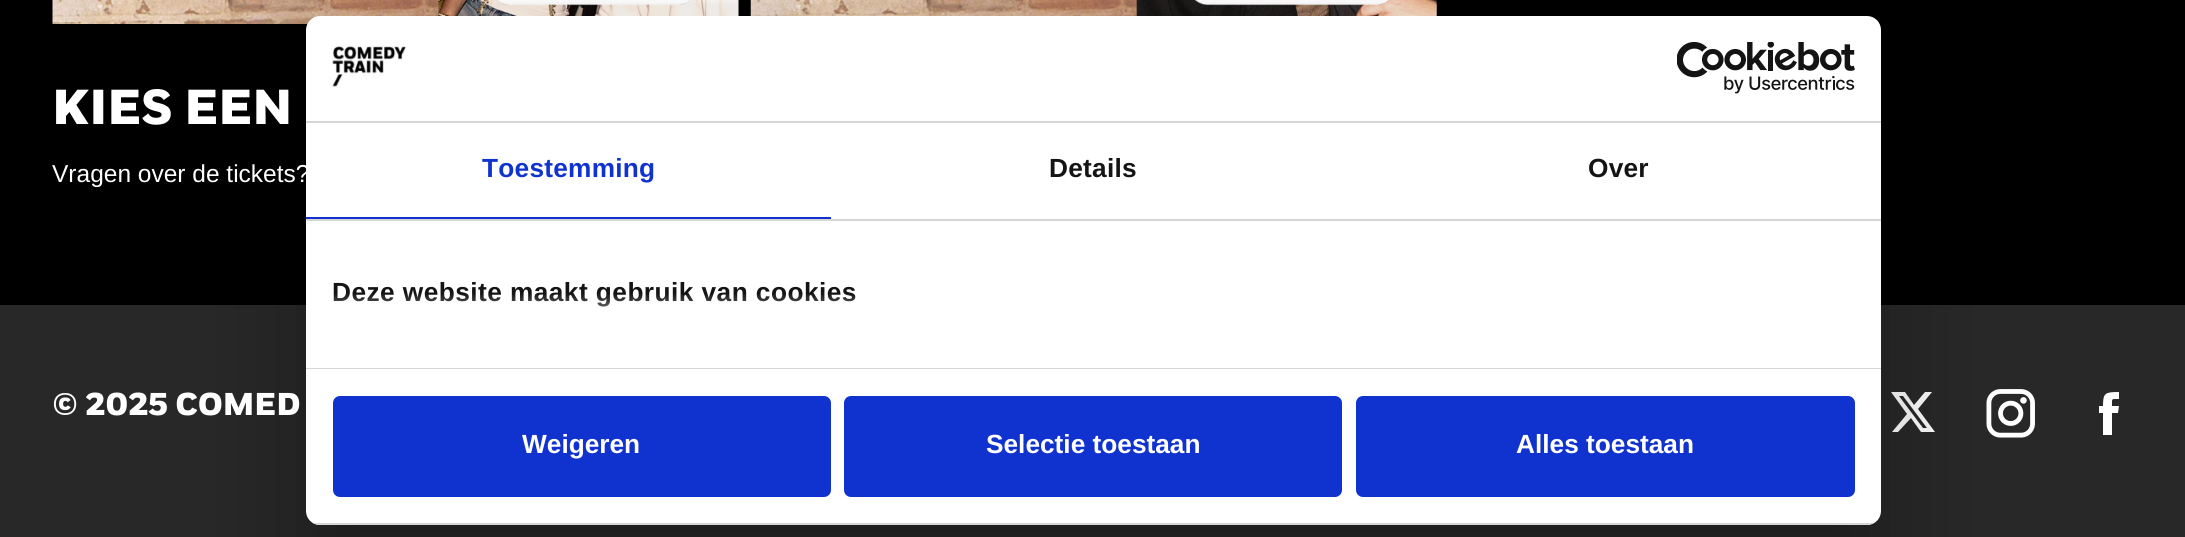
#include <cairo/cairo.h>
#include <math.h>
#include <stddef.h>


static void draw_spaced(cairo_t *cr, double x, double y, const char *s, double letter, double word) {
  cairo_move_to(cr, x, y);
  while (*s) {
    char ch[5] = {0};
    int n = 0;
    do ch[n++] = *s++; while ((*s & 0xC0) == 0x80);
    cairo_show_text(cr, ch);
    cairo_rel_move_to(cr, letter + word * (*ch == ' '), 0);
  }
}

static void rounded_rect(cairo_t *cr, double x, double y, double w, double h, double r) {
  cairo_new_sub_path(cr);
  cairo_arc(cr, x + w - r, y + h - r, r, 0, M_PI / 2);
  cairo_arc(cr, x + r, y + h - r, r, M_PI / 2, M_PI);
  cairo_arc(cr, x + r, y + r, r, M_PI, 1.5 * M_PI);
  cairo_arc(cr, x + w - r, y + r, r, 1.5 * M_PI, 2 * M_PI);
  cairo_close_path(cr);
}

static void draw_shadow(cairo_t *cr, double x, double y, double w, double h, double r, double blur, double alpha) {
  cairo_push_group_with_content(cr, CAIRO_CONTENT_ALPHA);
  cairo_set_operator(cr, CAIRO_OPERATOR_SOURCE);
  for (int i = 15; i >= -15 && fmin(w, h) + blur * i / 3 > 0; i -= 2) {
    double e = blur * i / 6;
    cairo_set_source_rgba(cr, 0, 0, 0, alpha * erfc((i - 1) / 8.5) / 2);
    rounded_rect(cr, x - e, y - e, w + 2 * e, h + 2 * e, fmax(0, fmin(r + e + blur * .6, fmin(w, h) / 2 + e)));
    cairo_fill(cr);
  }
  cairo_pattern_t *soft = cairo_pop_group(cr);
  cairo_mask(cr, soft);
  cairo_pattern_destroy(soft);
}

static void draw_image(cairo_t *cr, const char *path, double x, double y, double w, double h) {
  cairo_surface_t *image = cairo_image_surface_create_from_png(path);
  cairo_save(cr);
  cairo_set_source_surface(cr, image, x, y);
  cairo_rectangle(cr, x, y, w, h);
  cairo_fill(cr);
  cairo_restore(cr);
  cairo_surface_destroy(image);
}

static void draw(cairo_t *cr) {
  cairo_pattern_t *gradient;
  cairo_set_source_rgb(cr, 0, 0, 0);
  cairo_paint(cr);
  draw_image(cr, "images/1.png", 52, 0, 687, 24);
  draw_image(cr, "images/2.png", 750, 0, 687, 16);
  cairo_set_source_rgb(cr, 40 / 255.0, 40 / 255.0, 40 / 255.0);
  cairo_rectangle(cr, 0, 305, 2185, 232);
  cairo_fill(cr);
  cairo_set_source_rgb(cr, 1, 1, 1);
  cairo_new_path(cr);
  cairo_move_to(cr, 1925, 392);
  cairo_line_to(cr, 1932, 392);
  cairo_line_to(cr, 1918, 409);
  cairo_line_to(cr, 1935, 432);
  cairo_line_to(cr, 1921, 432);
  cairo_line_to(cr, 1911, 418);
  cairo_line_to(cr, 1898, 432);
  cairo_line_to(cr, 1892, 432);
  cairo_line_to(cr, 1907, 414);
  cairo_line_to(cr, 1891, 392);
  cairo_line_to(cr, 1905, 392);
  cairo_line_to(cr, 1914, 405);
  cairo_close_path(cr);
  cairo_move_to(cr, 1923, 428);
  cairo_line_to(cr, 1927, 428);
  cairo_line_to(cr, 1903, 396);
  cairo_line_to(cr, 1899, 396);
  cairo_close_path(cr);
  cairo_fill(cr);
  draw_image(cr, "images/3.png", 1986, 389, 49, 49);
  cairo_new_path(cr);
  cairo_move_to(cr, 2119, 406);
  cairo_line_to(cr, 2112, 406);
  cairo_curve_to(cr, 2112, 398, 2111, 399, 2119, 399);
  cairo_line_to(cr, 2119, 392);
  cairo_curve_to(cr, 2105, 392, 2103, 393, 2103, 406);
  cairo_line_to(cr, 2099, 406);
  cairo_line_to(cr, 2099, 413);
  cairo_line_to(cr, 2103, 413);
  cairo_line_to(cr, 2103, 435);
  cairo_line_to(cr, 2112, 435);
  cairo_line_to(cr, 2112, 413);
  cairo_line_to(cr, 2118, 413);
  cairo_close_path(cr);
  cairo_fill(cr);
  cairo_set_source_rgb(cr, 0, 0, 0);
  draw_shadow(cr, 306, 72, 1575, 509, 14, 59.5, 0.3);
  cairo_set_source_rgb(cr, 1, 1, 1);
  rounded_rect(cr, 306, 16, 1575, 509, 14);
  cairo_fill(cr);
  cairo_set_source_rgb(cr, 214 / 255.0, 214 / 255.0, 214 / 255.0);
  cairo_rectangle(cr, 306, 121, 1575, 2);
  cairo_fill(cr);
  draw_image(cr, "images/4.png", 332, 46, 74, 41);
  draw_image(cr, "images/5.png", 1677, 42, 178, 52);
  cairo_rectangle(cr, 306, 219, 1575, 2);
  cairo_fill(cr);
  cairo_set_source_rgb(cr, 16 / 255.0, 50 / 255.0, 207 / 255.0);
  cairo_rectangle(cr, 306, 217, 525, 2);
  cairo_fill(cr);
  cairo_set_source_rgb(cr, 214 / 255.0, 214 / 255.0, 214 / 255.0);
  cairo_rectangle(cr, 306, 368, 1575, 1);
  cairo_fill(cr);
  cairo_save(cr);
  rounded_rect(cr, 306, 16, 1575, 509, 14);
  cairo_clip(cr);
  cairo_rectangle(cr, 306, 523, 1575, 2);
  cairo_fill(cr);
  cairo_restore(cr);
  cairo_set_source_rgb(cr, 16 / 255.0, 50 / 255.0, 207 / 255.0);
  rounded_rect(cr, 335, 398, 494, 97, 5);
  cairo_fill_preserve(cr);
  cairo_set_line_width(cr, 4);
  cairo_stroke(cr);
  rounded_rect(cr, 846, 398, 494, 97, 5);
  cairo_fill_preserve(cr);
  cairo_stroke(cr);
  rounded_rect(cr, 1358, 398, 495, 97, 5);
  cairo_fill_preserve(cr);
  cairo_stroke(cr);
  cairo_select_font_face(cr, "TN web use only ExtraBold", CAIRO_FONT_SLANT_NORMAL, CAIRO_FONT_WEIGHT_NORMAL);
  cairo_set_font_size(cr, 49);
  cairo_set_source_rgb(cr, 1, 1, 1);
  cairo_move_to(cr, 52, 124);
  cairo_show_text(cr, "KIES EEN");
  cairo_select_font_face(cr, "Liberation Sans", CAIRO_FONT_SLANT_NORMAL, CAIRO_FONT_WEIGHT_NORMAL);
  cairo_set_font_size(cr, 24.5);
  cairo_move_to(cr, 52, 182);
  cairo_show_text(cr, "Vragen over de tickets?");
  cairo_select_font_face(cr, "TN web use only ExtraBold", CAIRO_FONT_SLANT_NORMAL, CAIRO_FONT_WEIGHT_NORMAL);
  cairo_set_font_size(cr, 31.5);
  cairo_move_to(cr, 52, 415);
  cairo_show_text(cr, "© 2025 COMED");
  cairo_select_font_face(cr, "Liberation Sans", CAIRO_FONT_SLANT_NORMAL, CAIRO_FONT_WEIGHT_BOLD);
  cairo_set_font_size(cr, 26.25);
  cairo_set_source_rgb(cr, 16 / 255.0, 50 / 255.0, 207 / 255.0);
  draw_spaced(cr, 482, 177, "Toestemming", 0.25, 0);
  cairo_set_source_rgb(cr, 20 / 255.0, 20 / 255.0, 20 / 255.0);
  draw_spaced(cr, 1049, 177, "Details", 0.25, 0);
  draw_spaced(cr, 1588, 177, "Over", 0.25, 0);
  draw_spaced(cr, 332, 301, "Deze website maakt gebruik van cookies", 0.45, 0);
  gradient = cairo_pattern_create_linear(1082, 367, 1082, 293);
  cairo_pattern_add_color_stop_rgba(gradient, 0, 1, 1, 1, 1);
  cairo_pattern_add_color_stop_rgba(gradient, 0.5, 1, 1, 1, 0.8);
  cairo_pattern_add_color_stop_rgba(gradient, 1, 1, 1, 1, 0);
  cairo_set_source(cr, gradient);
  cairo_pattern_destroy(gradient);
  cairo_rectangle(cr, 333, 294, 522, 13);
  cairo_fill(cr);
  cairo_set_source_rgb(cr, 1, 1, 1);
  cairo_move_to(cr, 522, 453);
  cairo_show_text(cr, "Weigeren");
  cairo_move_to(cr, 986, 453);
  cairo_show_text(cr, "Selectie toestaan");
  cairo_move_to(cr, 1516, 453);
  cairo_show_text(cr, "Alles toestaan");
}

int main(void) {
  cairo_surface_t *surface = cairo_image_surface_create(CAIRO_FORMAT_RGB24, 2185, 537);
  cairo_t *cr = cairo_create(surface);
  cairo_font_options_t *options = cairo_font_options_create();
  cairo_font_options_set_hint_metrics(options, CAIRO_HINT_METRICS_OFF);
  cairo_font_options_set_hint_style(options, CAIRO_HINT_STYLE_NONE);
  cairo_set_font_options(cr, options);
  cairo_set_miter_limit(cr, 4);
  draw(cr);
  cairo_surface_write_to_png(surface, "out.png");
  cairo_font_options_destroy(options);
  cairo_destroy(cr);
  cairo_surface_destroy(surface);
  return 0;
}
